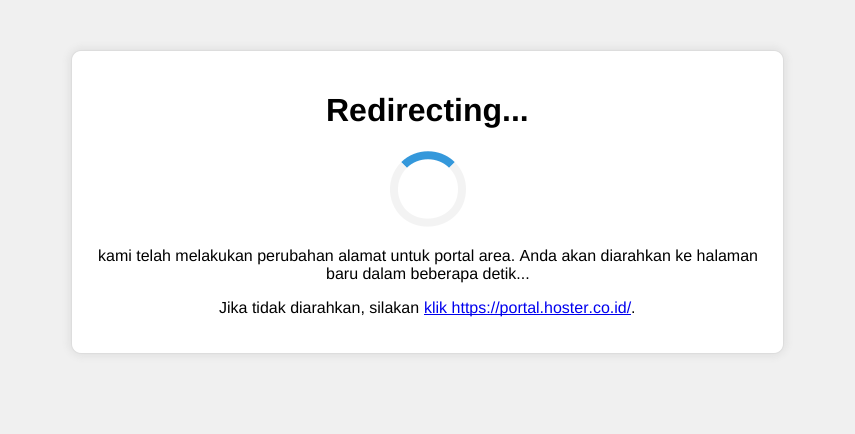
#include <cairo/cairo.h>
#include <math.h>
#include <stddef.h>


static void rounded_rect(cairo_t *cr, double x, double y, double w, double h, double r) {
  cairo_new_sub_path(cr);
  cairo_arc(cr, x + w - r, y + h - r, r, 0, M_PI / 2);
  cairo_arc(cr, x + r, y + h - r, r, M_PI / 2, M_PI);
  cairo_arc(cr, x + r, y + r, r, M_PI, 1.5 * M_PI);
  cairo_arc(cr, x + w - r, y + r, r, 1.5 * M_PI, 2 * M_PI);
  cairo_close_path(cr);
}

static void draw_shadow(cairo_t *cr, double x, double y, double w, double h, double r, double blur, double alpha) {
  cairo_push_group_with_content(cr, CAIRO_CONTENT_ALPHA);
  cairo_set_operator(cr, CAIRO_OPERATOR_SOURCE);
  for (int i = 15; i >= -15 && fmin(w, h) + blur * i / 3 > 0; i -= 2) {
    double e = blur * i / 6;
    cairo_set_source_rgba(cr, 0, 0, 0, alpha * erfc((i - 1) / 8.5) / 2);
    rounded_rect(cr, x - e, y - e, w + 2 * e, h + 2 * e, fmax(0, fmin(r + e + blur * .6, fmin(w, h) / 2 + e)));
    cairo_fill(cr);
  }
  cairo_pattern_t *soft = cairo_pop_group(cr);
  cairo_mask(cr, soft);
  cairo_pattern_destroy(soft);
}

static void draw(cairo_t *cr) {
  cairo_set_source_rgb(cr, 240 / 255.0, 240 / 255.0, 240 / 255.0);
  cairo_paint(cr);
  cairo_set_source_rgb(cr, 0, 0, 0);
  draw_shadow(cr, 71, 50, 713, 304, 10, 5, 0.1);
  cairo_set_source_rgb(cr, 1, 1, 1);
  rounded_rect(cr, 71.5, 50.5, 712, 303, 9.5);
  cairo_fill_preserve(cr);
  cairo_set_source_rgb(cr, 221 / 255.0, 221 / 255.0, 221 / 255.0);
  cairo_set_line_width(cr, 1);
  cairo_stroke(cr);
  cairo_new_path(cr);
  cairo_move_to(cr, 404, 165);
  cairo_curve_to(cr, 417, 152, 439, 152, 452, 165);
  cairo_set_source_rgb(cr, 52 / 255.0, 152 / 255.0, 219 / 255.0);
  cairo_set_line_width(cr, 8);
  cairo_stroke(cr);
  cairo_new_path(cr);
  cairo_move_to(cr, 452, 165);
  cairo_curve_to(cr, 458.5, 171.5, 462, 180, 462, 189);
  cairo_curve_to(cr, 462, 229.5, 402.5, 235.5, 394.5, 195.5);
  cairo_curve_to(cr, 392.5, 184.5, 396, 173, 404, 165);
  cairo_set_source_rgb(cr, 243 / 255.0, 243 / 255.0, 243 / 255.0);
  cairo_stroke(cr);
  cairo_set_source_rgb(cr, 0, 0, 238 / 255.0);
  cairo_rectangle(cr, 424, 314, 207, 1);
  cairo_fill(cr);
  cairo_select_font_face(cr, "Liberation Sans", CAIRO_FONT_SLANT_NORMAL, CAIRO_FONT_WEIGHT_BOLD);
  cairo_set_font_size(cr, 32);
  cairo_set_source_rgb(cr, 0, 0, 0);
  cairo_move_to(cr, 326, 121);
  cairo_show_text(cr, "Redirecting...");
  cairo_select_font_face(cr, "Liberation Sans", CAIRO_FONT_SLANT_NORMAL, CAIRO_FONT_WEIGHT_NORMAL);
  cairo_set_font_size(cr, 16);
  cairo_move_to(cr, 98, 261);
  cairo_show_text(cr, "kami telah melakukan perubahan alamat untuk portal area. Anda akan diarahkan ke halaman");
  cairo_move_to(cr, 326, 279);
  cairo_show_text(cr, "baru dalam beberapa detik...");
  cairo_move_to(cr, 219, 313);
  cairo_show_text(cr, "Jika tidak diarahkan, silakan");
  cairo_set_source_rgb(cr, 0, 0, 238 / 255.0);
  cairo_move_to(cr, 424, 313);
  cairo_show_text(cr, "klik https://portal.hoster.co.id/");
  cairo_set_source_rgb(cr, 0, 0, 0);
  cairo_move_to(cr, 631, 313);
  cairo_show_text(cr, ".");
}

int main(void) {
  cairo_surface_t *surface = cairo_image_surface_create(CAIRO_FORMAT_RGB24, 855, 434);
  cairo_t *cr = cairo_create(surface);
  cairo_font_options_t *options = cairo_font_options_create();
  cairo_font_options_set_hint_metrics(options, CAIRO_HINT_METRICS_OFF);
  cairo_font_options_set_hint_style(options, CAIRO_HINT_STYLE_NONE);
  cairo_set_font_options(cr, options);
  cairo_set_miter_limit(cr, 4);
  draw(cr);
  cairo_surface_write_to_png(surface, "out.png");
  cairo_font_options_destroy(options);
  cairo_destroy(cr);
  cairo_surface_destroy(surface);
  return 0;
}
